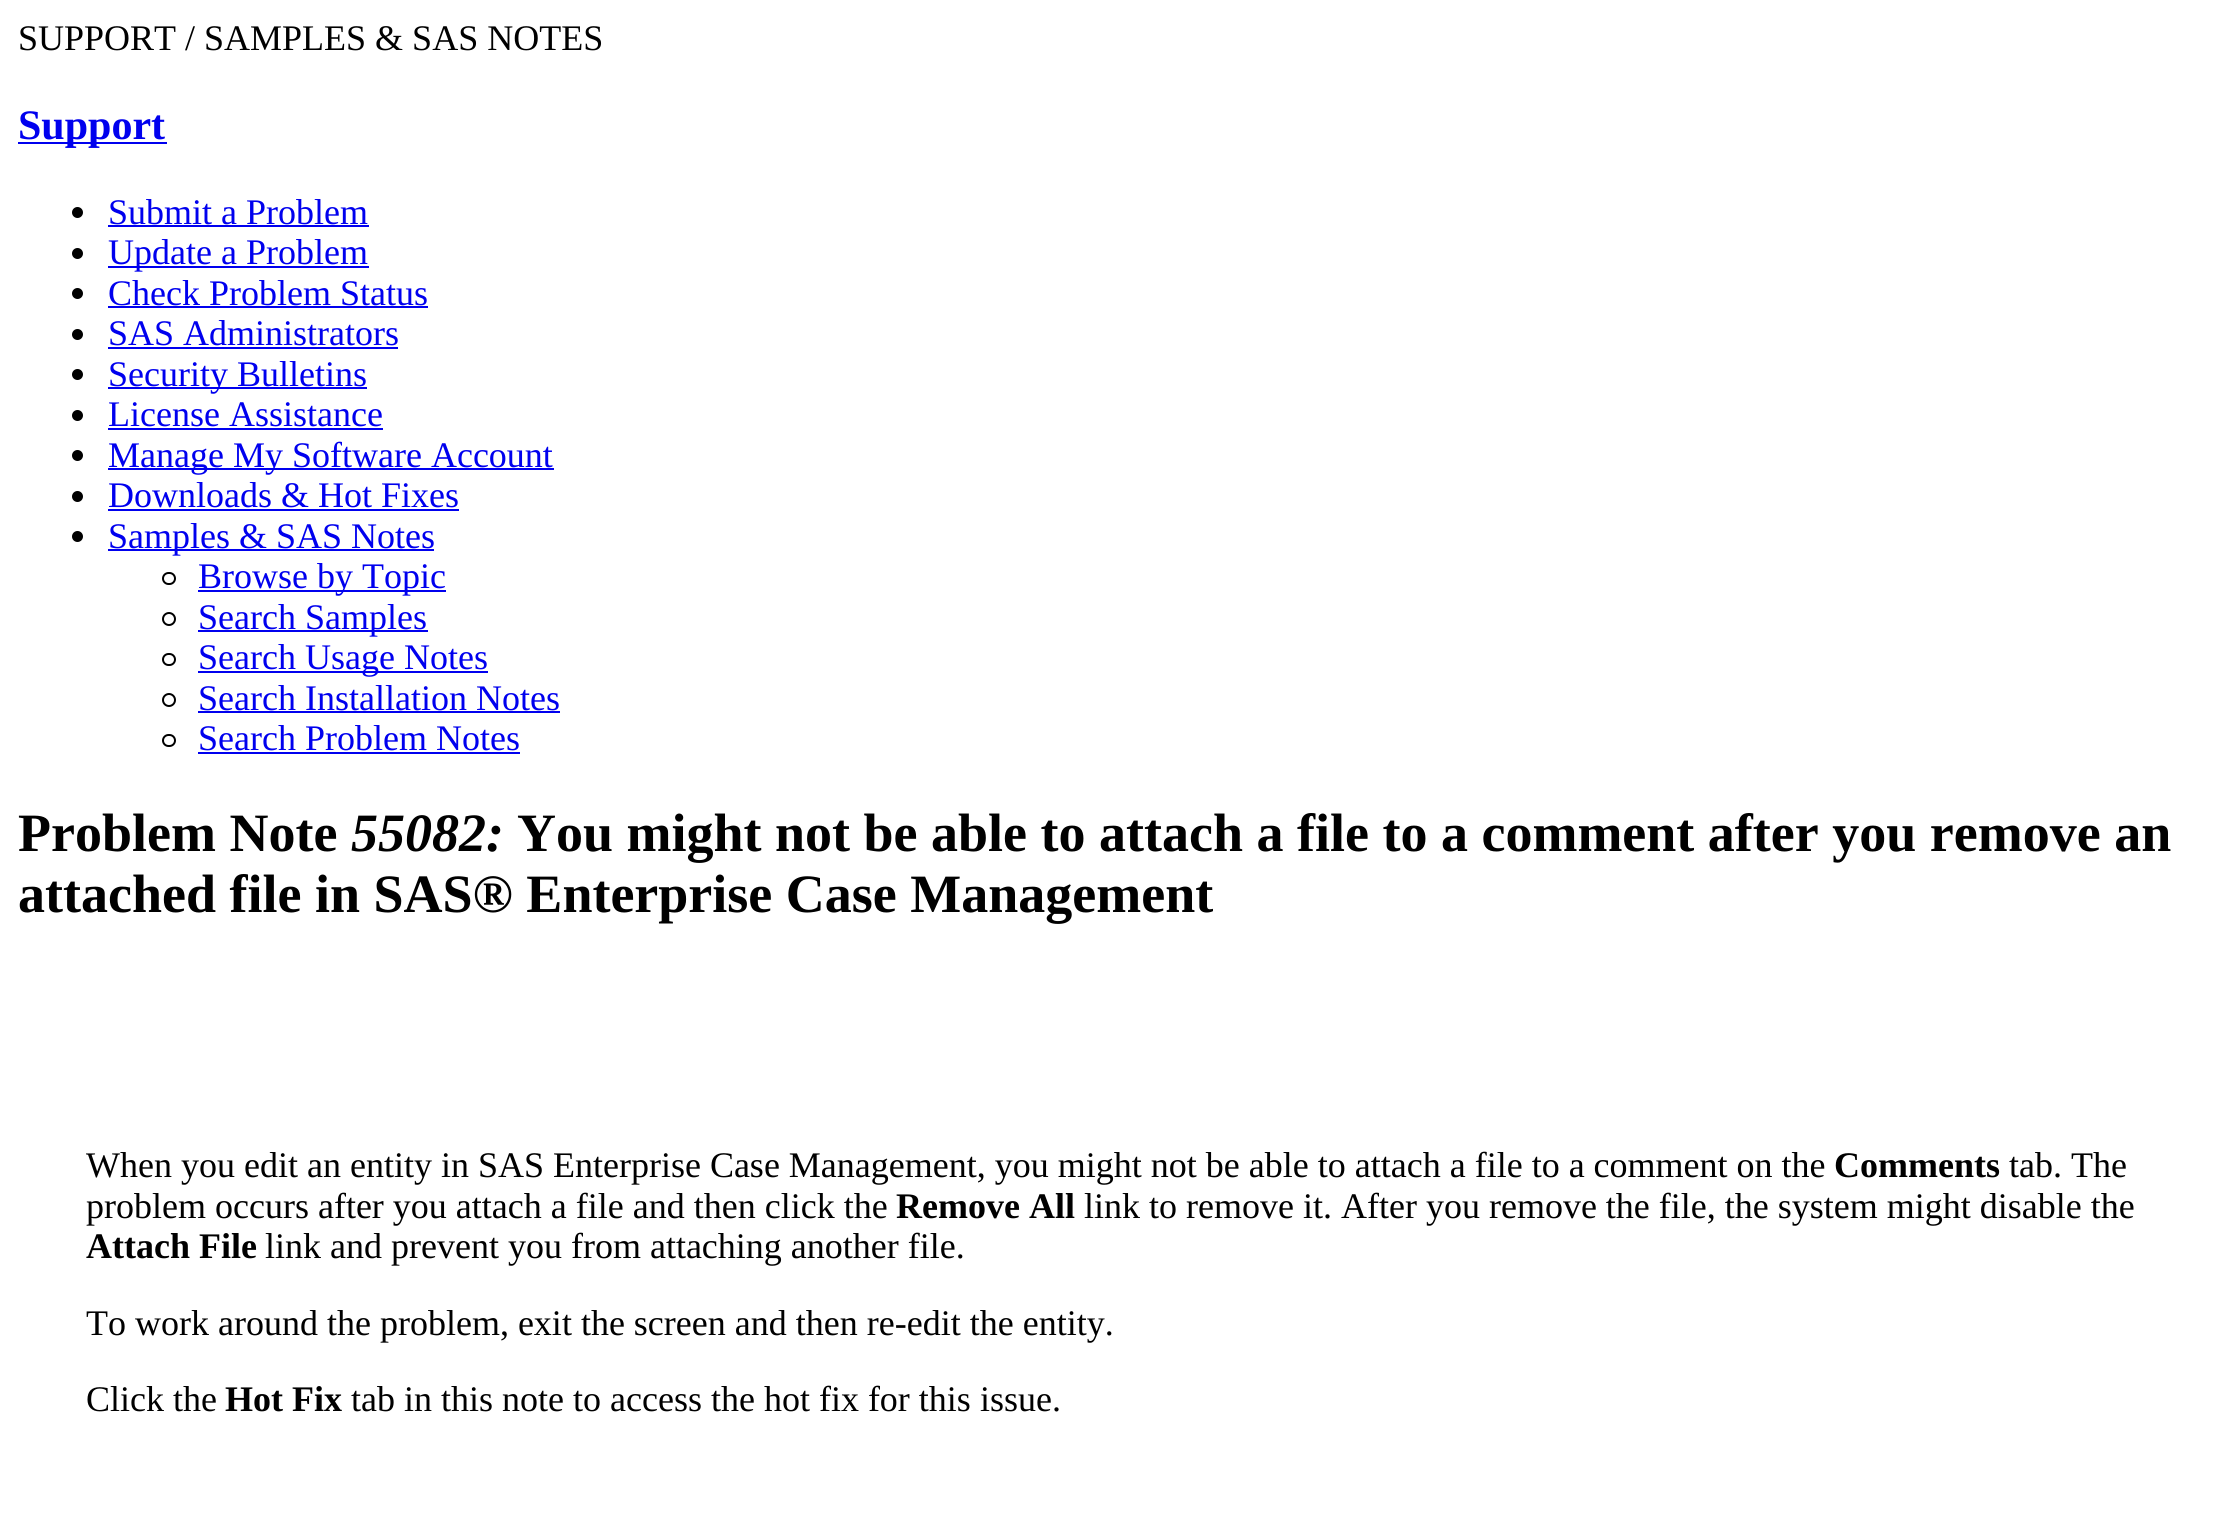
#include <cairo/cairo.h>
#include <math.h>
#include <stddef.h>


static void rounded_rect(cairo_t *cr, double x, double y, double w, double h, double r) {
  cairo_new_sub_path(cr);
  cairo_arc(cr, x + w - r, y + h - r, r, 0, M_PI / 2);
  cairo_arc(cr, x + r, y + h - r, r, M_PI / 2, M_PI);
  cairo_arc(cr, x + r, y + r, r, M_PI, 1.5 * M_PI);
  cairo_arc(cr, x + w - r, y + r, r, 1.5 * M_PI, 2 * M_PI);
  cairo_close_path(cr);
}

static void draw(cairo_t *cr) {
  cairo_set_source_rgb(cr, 1, 1, 1);
  cairo_paint(cr);
  cairo_set_source_rgb(cr, 0, 0, 238 / 255.0);
  cairo_rectangle(cr, 18, 142, 149, 2);
  cairo_fill(cr);
  cairo_set_source_rgb(cr, 0, 0, 0);
  cairo_arc(cr, 77.5, 212.5, 5.5, 0, 2 * M_PI);
  cairo_fill(cr);
  cairo_set_source_rgb(cr, 0, 0, 238 / 255.0);
  cairo_rectangle(cr, 108, 225, 261, 2);
  cairo_fill(cr);
  cairo_set_source_rgb(cr, 0, 0, 0);
  cairo_arc(cr, 77.5, 253.5, 5.5, 0, 2 * M_PI);
  cairo_fill(cr);
  cairo_set_source_rgb(cr, 0, 0, 238 / 255.0);
  cairo_rectangle(cr, 108, 266, 261, 2);
  cairo_fill(cr);
  cairo_set_source_rgb(cr, 0, 0, 0);
  cairo_arc(cr, 77.5, 293.5, 5.5, 0, 2 * M_PI);
  cairo_fill(cr);
  cairo_set_source_rgb(cr, 0, 0, 238 / 255.0);
  cairo_rectangle(cr, 108, 306, 320, 2);
  cairo_fill(cr);
  cairo_set_source_rgb(cr, 0, 0, 0);
  cairo_arc(cr, 77.5, 334.5, 5.5, 0, 2 * M_PI);
  cairo_fill(cr);
  cairo_set_source_rgb(cr, 0, 0, 238 / 255.0);
  cairo_rectangle(cr, 108, 347, 290, 2);
  cairo_fill(cr);
  cairo_set_source_rgb(cr, 0, 0, 0);
  cairo_arc(cr, 77.5, 374.5, 5.5, 0, 2 * M_PI);
  cairo_fill(cr);
  cairo_set_source_rgb(cr, 0, 0, 238 / 255.0);
  cairo_rectangle(cr, 108, 387, 259, 2);
  cairo_fill(cr);
  cairo_set_source_rgb(cr, 0, 0, 0);
  cairo_arc(cr, 77.5, 415.5, 5.5, 0, 2 * M_PI);
  cairo_fill(cr);
  cairo_set_source_rgb(cr, 0, 0, 238 / 255.0);
  cairo_rectangle(cr, 108, 428, 275, 2);
  cairo_fill(cr);
  cairo_set_source_rgb(cr, 0, 0, 0);
  cairo_arc(cr, 77.5, 455.5, 5.5, 0, 2 * M_PI);
  cairo_fill(cr);
  cairo_set_source_rgb(cr, 0, 0, 238 / 255.0);
  cairo_rectangle(cr, 108, 468, 446, 2);
  cairo_fill(cr);
  cairo_set_source_rgb(cr, 0, 0, 0);
  cairo_arc(cr, 77.5, 496.5, 5.5, 0, 2 * M_PI);
  cairo_fill(cr);
  cairo_set_source_rgb(cr, 0, 0, 238 / 255.0);
  cairo_rectangle(cr, 108, 509, 351, 2);
  cairo_fill(cr);
  cairo_set_source_rgb(cr, 0, 0, 0);
  cairo_arc(cr, 77.5, 536.5, 5.5, 0, 2 * M_PI);
  cairo_fill(cr);
  cairo_set_source_rgb(cr, 0, 0, 238 / 255.0);
  cairo_rectangle(cr, 108, 549, 326, 2);
  cairo_fill(cr);
  rounded_rect(cr, 163, 573, 12, 11, 5.5);
  cairo_set_source_rgb(cr, 0, 0, 0);
  cairo_stroke(cr);
  cairo_set_source_rgb(cr, 0, 0, 238 / 255.0);
  cairo_rectangle(cr, 198, 590, 248, 2);
  cairo_fill(cr);
  cairo_arc(cr, 169, 619, 6, 0, 2 * M_PI);
  cairo_set_source_rgb(cr, 0, 0, 0);
  cairo_stroke(cr);
  cairo_set_source_rgb(cr, 0, 0, 238 / 255.0);
  cairo_rectangle(cr, 198, 630, 230, 2);
  cairo_fill(cr);
  rounded_rect(cr, 163, 654, 12, 11, 5.5);
  cairo_set_source_rgb(cr, 0, 0, 0);
  cairo_stroke(cr);
  cairo_set_source_rgb(cr, 0, 0, 238 / 255.0);
  cairo_rectangle(cr, 198, 671, 290, 2);
  cairo_fill(cr);
  cairo_arc(cr, 169, 700, 6, 0, 2 * M_PI);
  cairo_set_source_rgb(cr, 0, 0, 0);
  cairo_stroke(cr);
  cairo_set_source_rgb(cr, 0, 0, 238 / 255.0);
  cairo_rectangle(cr, 198, 711, 362, 2);
  cairo_fill(cr);
  rounded_rect(cr, 163, 735, 12, 11, 5.5);
  cairo_set_source_rgb(cr, 0, 0, 0);
  cairo_stroke(cr);
  cairo_set_source_rgb(cr, 0, 0, 238 / 255.0);
  cairo_rectangle(cr, 198, 752, 322, 2);
  cairo_fill(cr);
  cairo_select_font_face(cr, "Liberation Serif", CAIRO_FONT_SLANT_NORMAL, CAIRO_FONT_WEIGHT_NORMAL);
  cairo_set_font_size(cr, 36);
  cairo_set_source_rgb(cr, 0, 0, 0);
  cairo_move_to(cr, 18, 50);
  cairo_show_text(cr, "SUPPORT / SAMPLES & SAS NOTES");
  cairo_select_font_face(cr, "Liberation Serif", CAIRO_FONT_SLANT_NORMAL, CAIRO_FONT_WEIGHT_BOLD);
  cairo_set_font_size(cr, 42);
  cairo_set_source_rgb(cr, 0, 0, 238 / 255.0);
  cairo_move_to(cr, 18, 139);
  cairo_show_text(cr, "Support");
  cairo_select_font_face(cr, "Liberation Serif", CAIRO_FONT_SLANT_NORMAL, CAIRO_FONT_WEIGHT_NORMAL);
  cairo_set_font_size(cr, 36);
  cairo_move_to(cr, 108, 224);
  cairo_show_text(cr, "Submit a Problem");
  cairo_move_to(cr, 108, 264);
  cairo_show_text(cr, "Update a Problem");
  cairo_move_to(cr, 108, 305);
  cairo_show_text(cr, "Check Problem Status");
  cairo_move_to(cr, 108, 345);
  cairo_show_text(cr, "SAS Administrators");
  cairo_move_to(cr, 108, 386);
  cairo_show_text(cr, "Security Bulletins");
  cairo_move_to(cr, 108, 426);
  cairo_show_text(cr, "License Assistance");
  cairo_move_to(cr, 108, 467);
  cairo_show_text(cr, "Manage My Software Account");
  cairo_move_to(cr, 108, 507);
  cairo_show_text(cr, "Downloads & Hot Fixes");
  cairo_move_to(cr, 108, 548);
  cairo_show_text(cr, "Samples & SAS Notes");
  cairo_move_to(cr, 198, 588);
  cairo_show_text(cr, "Browse by Topic");
  cairo_move_to(cr, 198, 629);
  cairo_show_text(cr, "Search Samples");
  cairo_move_to(cr, 198, 669);
  cairo_show_text(cr, "Search Usage Notes");
  cairo_move_to(cr, 198, 710);
  cairo_show_text(cr, "Search Installation Notes");
  cairo_move_to(cr, 198, 750);
  cairo_show_text(cr, "Search Problem Notes");
  cairo_select_font_face(cr, "Liberation Serif", CAIRO_FONT_SLANT_NORMAL, CAIRO_FONT_WEIGHT_BOLD);
  cairo_set_font_size(cr, 54);
  cairo_set_source_rgb(cr, 0, 0, 0);
  cairo_move_to(cr, 18, 851);
  cairo_show_text(cr, "Problem Note");
  cairo_select_font_face(cr, "Liberation Serif", CAIRO_FONT_SLANT_ITALIC, CAIRO_FONT_WEIGHT_BOLD);
  cairo_move_to(cr, 351, 851);
  cairo_show_text(cr, "55082:");
  cairo_select_font_face(cr, "Liberation Serif", CAIRO_FONT_SLANT_NORMAL, CAIRO_FONT_WEIGHT_BOLD);
  cairo_move_to(cr, 517, 851);
  cairo_show_text(cr, "You might not be able to attach a file to a comment after you remove an");
  cairo_move_to(cr, 18, 912);
  cairo_show_text(cr, "attached file in SAS® Enterprise Case Management");
  cairo_select_font_face(cr, "Liberation Serif", CAIRO_FONT_SLANT_NORMAL, CAIRO_FONT_WEIGHT_NORMAL);
  cairo_set_font_size(cr, 36);
  cairo_move_to(cr, 86, 1177);
  cairo_show_text(cr, "When you edit an entity in SAS Enterprise Case Management, you might not be able to attach a file to a comment on the");
  cairo_select_font_face(cr, "Liberation Serif", CAIRO_FONT_SLANT_NORMAL, CAIRO_FONT_WEIGHT_BOLD);
  cairo_move_to(cr, 1834, 1177);
  cairo_show_text(cr, "Comments");
  cairo_select_font_face(cr, "Liberation Serif", CAIRO_FONT_SLANT_NORMAL, CAIRO_FONT_WEIGHT_NORMAL);
  cairo_move_to(cr, 2009, 1177);
  cairo_show_text(cr, "tab. The");
  cairo_move_to(cr, 86, 1218);
  cairo_show_text(cr, "problem occurs after you attach a file and then click the");
  cairo_select_font_face(cr, "Liberation Serif", CAIRO_FONT_SLANT_NORMAL, CAIRO_FONT_WEIGHT_BOLD);
  cairo_move_to(cr, 896, 1218);
  cairo_show_text(cr, "Remove All");
  cairo_select_font_face(cr, "Liberation Serif", CAIRO_FONT_SLANT_NORMAL, CAIRO_FONT_WEIGHT_NORMAL);
  cairo_move_to(cr, 1084, 1218);
  cairo_show_text(cr, "link to remove it. After you remove the file, the system might disable the");
  cairo_select_font_face(cr, "Liberation Serif", CAIRO_FONT_SLANT_NORMAL, CAIRO_FONT_WEIGHT_BOLD);
  cairo_move_to(cr, 86, 1258);
  cairo_show_text(cr, "Attach File");
  cairo_select_font_face(cr, "Liberation Serif", CAIRO_FONT_SLANT_NORMAL, CAIRO_FONT_WEIGHT_NORMAL);
  cairo_move_to(cr, 265, 1258);
  cairo_show_text(cr, "link and prevent you from attaching another file.");
  cairo_move_to(cr, 86, 1335);
  cairo_show_text(cr, "To work around the problem, exit the screen and then re-edit the entity.");
  cairo_move_to(cr, 86, 1411);
  cairo_show_text(cr, "Click the");
  cairo_select_font_face(cr, "Liberation Serif", CAIRO_FONT_SLANT_NORMAL, CAIRO_FONT_WEIGHT_BOLD);
  cairo_move_to(cr, 225, 1411);
  cairo_show_text(cr, "Hot Fix");
  cairo_select_font_face(cr, "Liberation Serif", CAIRO_FONT_SLANT_NORMAL, CAIRO_FONT_WEIGHT_NORMAL);
  cairo_move_to(cr, 351, 1411);
  cairo_show_text(cr, "tab in this note to access the hot fix for this issue.");
}

int main(void) {
  cairo_surface_t *surface = cairo_image_surface_create(CAIRO_FORMAT_RGB24, 2239, 1526);
  cairo_t *cr = cairo_create(surface);
  cairo_font_options_t *options = cairo_font_options_create();
  cairo_font_options_set_hint_metrics(options, CAIRO_HINT_METRICS_OFF);
  cairo_font_options_set_hint_style(options, CAIRO_HINT_STYLE_NONE);
  cairo_set_font_options(cr, options);
  cairo_set_miter_limit(cr, 4);
  draw(cr);
  cairo_surface_write_to_png(surface, "out.png");
  cairo_font_options_destroy(options);
  cairo_destroy(cr);
  cairo_surface_destroy(surface);
  return 0;
}
